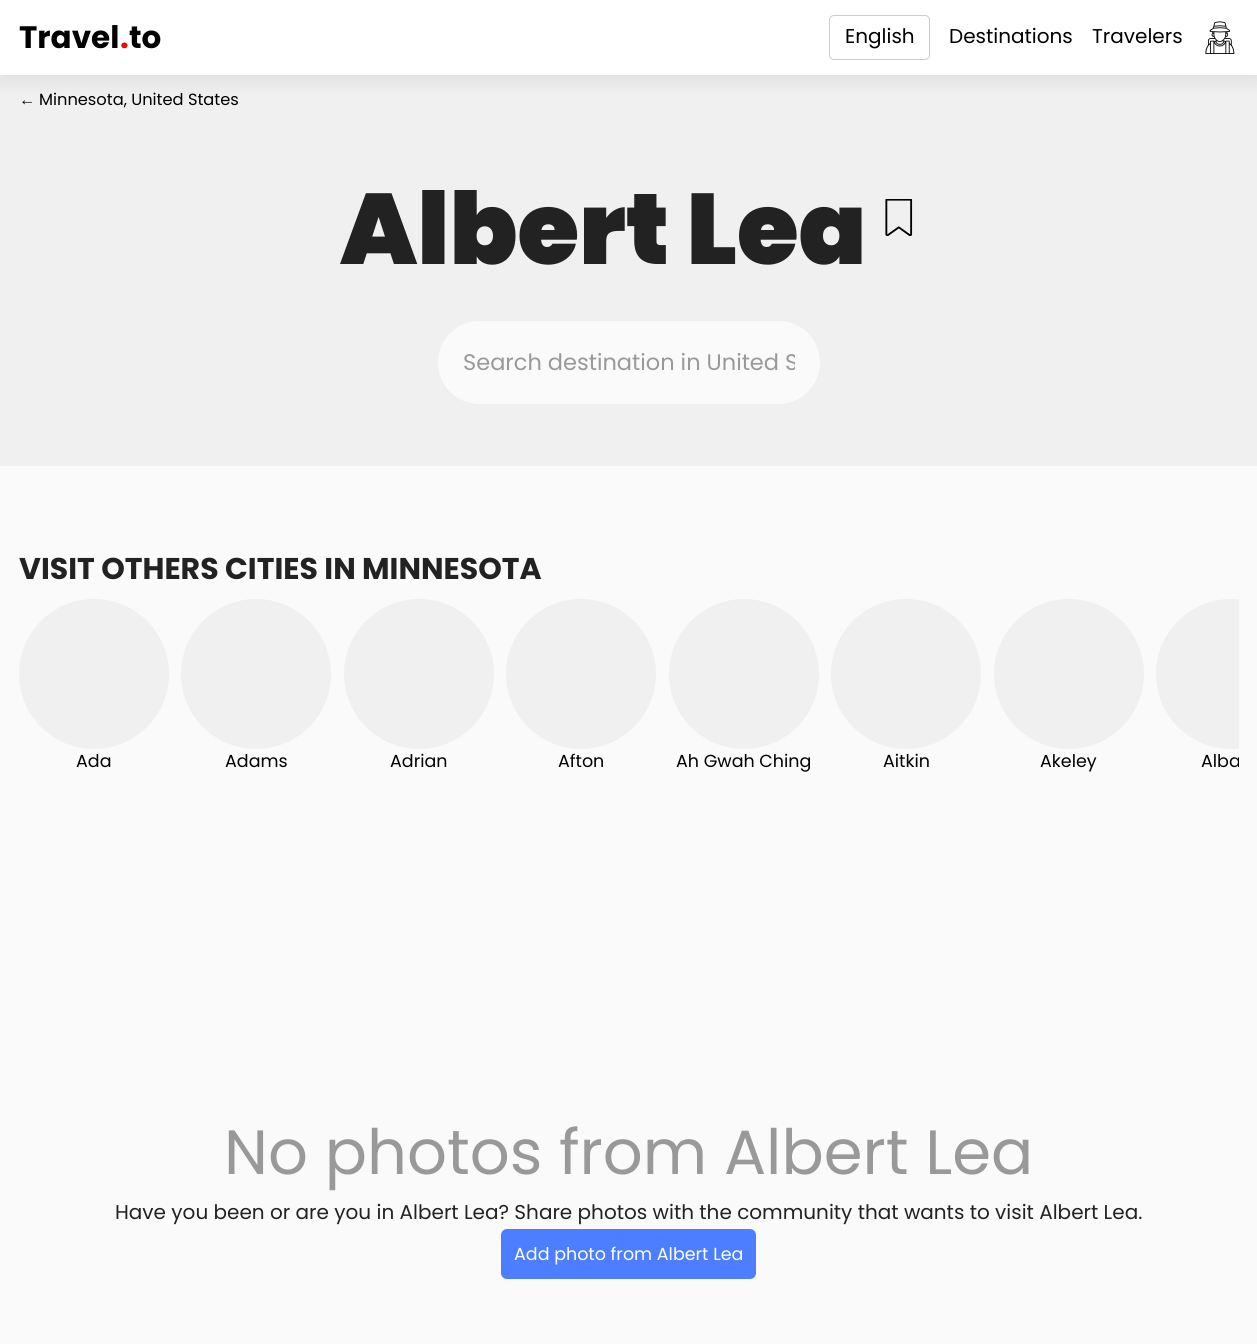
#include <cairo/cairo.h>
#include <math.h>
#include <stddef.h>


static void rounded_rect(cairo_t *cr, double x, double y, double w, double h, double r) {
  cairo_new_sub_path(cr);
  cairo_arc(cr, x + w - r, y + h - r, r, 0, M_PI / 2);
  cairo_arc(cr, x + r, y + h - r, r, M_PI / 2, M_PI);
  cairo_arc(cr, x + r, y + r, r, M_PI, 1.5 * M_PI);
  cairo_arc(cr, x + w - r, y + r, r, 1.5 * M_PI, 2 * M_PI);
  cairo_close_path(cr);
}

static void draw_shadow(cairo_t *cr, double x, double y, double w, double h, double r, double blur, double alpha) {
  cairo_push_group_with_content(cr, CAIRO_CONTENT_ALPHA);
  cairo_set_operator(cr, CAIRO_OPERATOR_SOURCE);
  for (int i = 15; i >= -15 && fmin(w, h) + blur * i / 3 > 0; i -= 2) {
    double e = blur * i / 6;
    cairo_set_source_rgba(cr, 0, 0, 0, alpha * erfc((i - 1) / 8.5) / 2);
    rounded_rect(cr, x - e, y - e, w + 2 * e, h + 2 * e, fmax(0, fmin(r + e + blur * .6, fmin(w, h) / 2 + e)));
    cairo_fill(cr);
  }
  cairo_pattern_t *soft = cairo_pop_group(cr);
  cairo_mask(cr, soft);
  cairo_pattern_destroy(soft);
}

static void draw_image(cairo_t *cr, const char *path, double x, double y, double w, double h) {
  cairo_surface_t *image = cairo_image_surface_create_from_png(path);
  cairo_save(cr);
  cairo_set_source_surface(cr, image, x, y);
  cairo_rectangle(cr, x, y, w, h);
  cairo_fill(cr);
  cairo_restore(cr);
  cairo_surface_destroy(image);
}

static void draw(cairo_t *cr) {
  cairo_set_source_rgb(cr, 250 / 255.0, 250 / 255.0, 250 / 255.0);
  cairo_paint(cr);
  cairo_set_source_rgb(cr, 240 / 255.0, 240 / 255.0, 240 / 255.0);
  cairo_rectangle(cr, 0, 75, 1257, 391);
  cairo_fill(cr);
  cairo_set_source_rgb(cr, 0, 0, 0);
  draw_shadow(cr, 0, 6, 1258, 75, 0, 9.5, 0.08);
  cairo_set_source_rgb(cr, 1, 1, 1);
  cairo_rectangle(cr, 0, 0, 1257, 75);
  cairo_fill(cr);
  rounded_rect(cr, 829.5, 15.5, 100, 44, 4.5);
  cairo_set_source_rgb(cr, 204 / 255.0, 204 / 255.0, 204 / 255.0);
  cairo_set_line_width(cr, 1);
  cairo_stroke(cr);
  draw_image(cr, "images/1.png", 1205, 21, 30, 33);
  draw_image(cr, "images/2.png", 885, 199, 28, 37);
  cairo_set_source_rgb(cr, 250 / 255.0, 250 / 255.0, 250 / 255.0);
  rounded_rect(cr, 438, 321, 382, 83, 41.5);
  cairo_fill(cr);
  cairo_set_source_rgb(cr, 240 / 255.0, 240 / 255.0, 240 / 255.0);
  cairo_arc(cr, 94, 674, 75, 0, 2 * M_PI);
  cairo_fill(cr);
  cairo_arc(cr, 256, 674, 75, 0, 2 * M_PI);
  cairo_fill(cr);
  cairo_arc(cr, 419, 674, 75, 0, 2 * M_PI);
  cairo_fill(cr);
  cairo_arc(cr, 581, 674, 75, 0, 2 * M_PI);
  cairo_fill(cr);
  cairo_arc(cr, 744, 674, 75, 0, 2 * M_PI);
  cairo_fill(cr);
  cairo_arc(cr, 906, 674, 75, 0, 2 * M_PI);
  cairo_fill(cr);
  cairo_arc(cr, 1069, 674, 75, 0, 2 * M_PI);
  cairo_fill(cr);
  cairo_save(cr);
  cairo_rectangle(cr, 19, 599, 1220, 175);
  cairo_clip(cr);
  cairo_arc(cr, 1231, 674, 75, 0, 2 * M_PI);
  cairo_fill(cr);
  cairo_restore(cr);
  cairo_set_source_rgb(cr, 76 / 255.0, 126 / 255.0, 1);
  rounded_rect(cr, 501, 1229, 255, 50, 6);
  cairo_fill(cr);
  cairo_select_font_face(cr, "Poppins", CAIRO_FONT_SLANT_NORMAL, CAIRO_FONT_WEIGHT_BOLD);
  cairo_set_font_size(cr, 31);
  cairo_set_source_rgb(cr, 0, 0, 0);
  cairo_move_to(cr, 19, 48);
  cairo_show_text(cr, "Travel");
  cairo_set_source_rgb(cr, 1, 0, 0);
  cairo_move_to(cr, 120, 48);
  cairo_show_text(cr, ".");
  cairo_set_source_rgb(cr, 0, 0, 0);
  cairo_move_to(cr, 129, 48);
  cairo_show_text(cr, "to");
  cairo_select_font_face(cr, "Poppins", CAIRO_FONT_SLANT_NORMAL, CAIRO_FONT_WEIGHT_NORMAL);
  cairo_set_font_size(cr, 20);
  cairo_move_to(cr, 845, 43);
  cairo_show_text(cr, "English");
  cairo_move_to(cr, 949, 43);
  cairo_show_text(cr, "Destinations");
  cairo_move_to(cr, 1092, 43);
  cairo_show_text(cr, "Travelers");
  cairo_select_font_face(cr, "Liberation Sans", CAIRO_FONT_SLANT_NORMAL, CAIRO_FONT_WEIGHT_NORMAL);
  cairo_set_font_size(cr, 16.25);
  cairo_move_to(cr, 19, 105);
  cairo_show_text(cr, "←");
  cairo_select_font_face(cr, "Poppins", CAIRO_FONT_SLANT_NORMAL, CAIRO_FONT_WEIGHT_NORMAL);
  cairo_move_to(cr, 39, 105);
  cairo_show_text(cr, "Minnesota, United States");
  cairo_select_font_face(cr, "Poppins Black", CAIRO_FONT_SLANT_NORMAL, CAIRO_FONT_WEIGHT_NORMAL);
  cairo_set_font_size(cr, 100);
  cairo_set_source_rgb(cr, 34 / 255.0, 34 / 255.0, 34 / 255.0);
  cairo_move_to(cr, 340, 264);
  cairo_show_text(cr, "Albert Lea");
  cairo_save(cr);
  cairo_rectangle(cr, 463, 345, 332, 34);
  cairo_clip(cr);
  cairo_select_font_face(cr, "Poppins", CAIRO_FONT_SLANT_NORMAL, CAIRO_FONT_WEIGHT_NORMAL);
  cairo_set_font_size(cr, 22.5);
  cairo_set_source_rgb(cr, 153 / 255.0, 153 / 255.0, 153 / 255.0);
  cairo_move_to(cr, 463, 370);
  cairo_show_text(cr, "Search destination in United S");
  cairo_restore(cr);
  cairo_select_font_face(cr, "Poppins", CAIRO_FONT_SLANT_NORMAL, CAIRO_FONT_WEIGHT_BOLD);
  cairo_set_font_size(cr, 30);
  cairo_move_to(cr, 19, 579);
  cairo_show_text(cr, "VISIT OTHERS CITIES IN MINNESOTA");
  cairo_select_font_face(cr, "Poppins", CAIRO_FONT_SLANT_NORMAL, CAIRO_FONT_WEIGHT_NORMAL);
  cairo_set_font_size(cr, 17.5);
  cairo_set_source_rgb(cr, 0, 0, 0);
  cairo_move_to(cr, 76, 767);
  cairo_show_text(cr, "Ada");
  cairo_move_to(cr, 225, 767);
  cairo_show_text(cr, "Adams");
  cairo_move_to(cr, 390, 767);
  cairo_show_text(cr, "Adrian");
  cairo_move_to(cr, 558, 767);
  cairo_show_text(cr, "Afton");
  cairo_move_to(cr, 676, 767);
  cairo_show_text(cr, "Ah Gwah Ching");
  cairo_move_to(cr, 883, 767);
  cairo_show_text(cr, "Aitkin");
  cairo_move_to(cr, 1040, 767);
  cairo_show_text(cr, "Akeley");
  cairo_save(cr);
  cairo_rectangle(cr, 1156, 749, 83, 25);
  cairo_clip(cr);
  cairo_move_to(cr, 1201, 767);
  cairo_show_text(cr, "Alba");
  cairo_restore(cr);
  cairo_set_font_size(cr, 62.5);
  cairo_set_source_rgb(cr, 153 / 255.0, 153 / 255.0, 153 / 255.0);
  cairo_move_to(cr, 224, 1174);
  cairo_show_text(cr, "No photos from Albert Lea");
  cairo_set_font_size(cr, 20);
  cairo_set_source_rgb(cr, 34 / 255.0, 34 / 255.0, 34 / 255.0);
  cairo_move_to(cr, 115, 1219);
  cairo_show_text(cr, "Have you been or are you in Albert Lea? Share photos with the community that wants to visit Albert Lea.");
  cairo_set_font_size(cr, 17.5);
  cairo_set_source_rgb(cr, 1, 1, 1);
  cairo_move_to(cr, 514, 1260);
  cairo_show_text(cr, "Add photo from Albert Lea");
}

int main(void) {
  cairo_surface_t *surface = cairo_image_surface_create(CAIRO_FORMAT_RGB24, 1257, 1344);
  cairo_t *cr = cairo_create(surface);
  cairo_font_options_t *options = cairo_font_options_create();
  cairo_font_options_set_hint_metrics(options, CAIRO_HINT_METRICS_OFF);
  cairo_font_options_set_hint_style(options, CAIRO_HINT_STYLE_NONE);
  cairo_set_font_options(cr, options);
  cairo_set_miter_limit(cr, 4);
  draw(cr);
  cairo_surface_write_to_png(surface, "out.png");
  cairo_font_options_destroy(options);
  cairo_destroy(cr);
  cairo_surface_destroy(surface);
  return 0;
}
